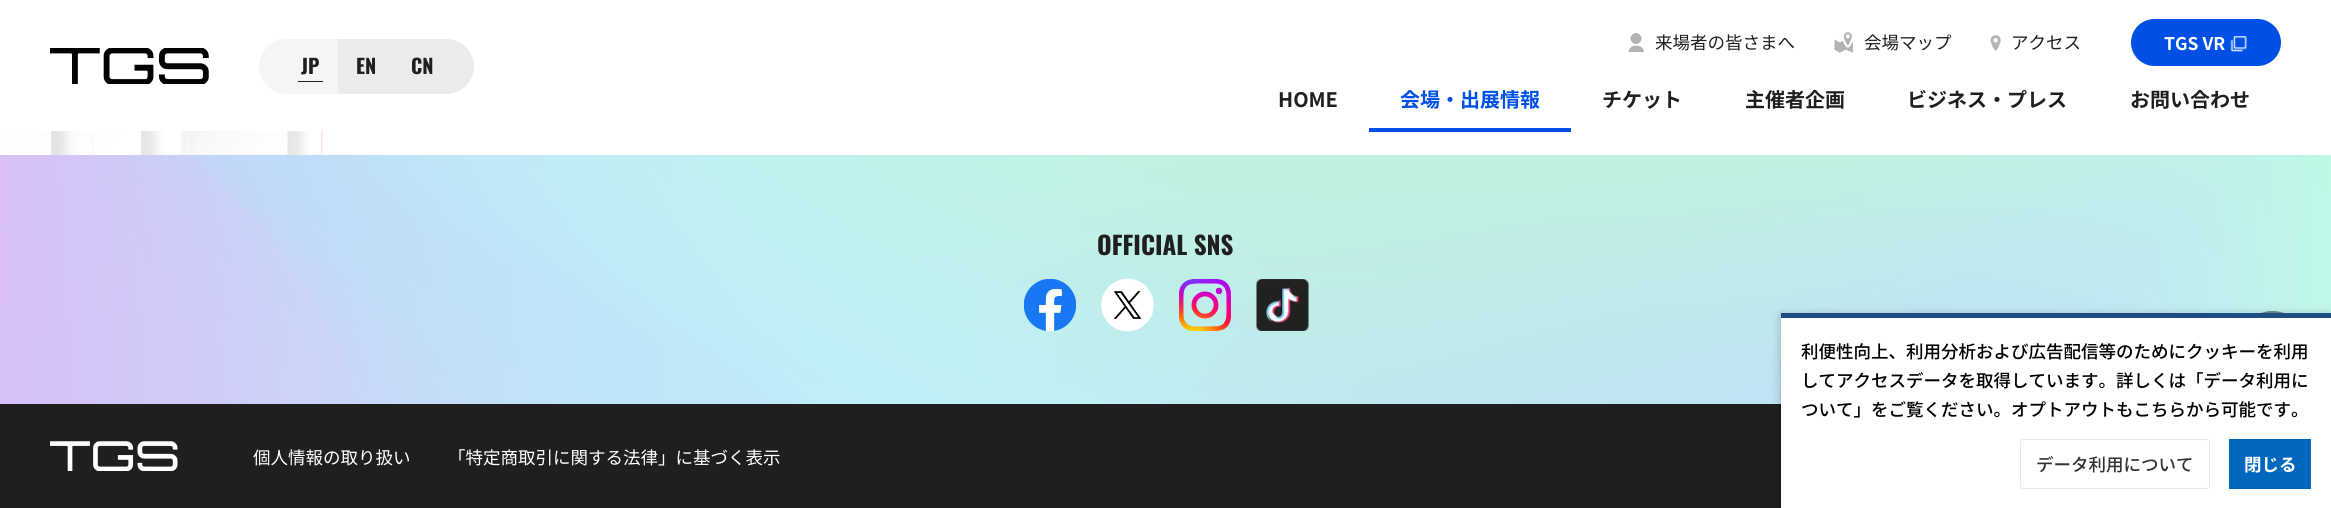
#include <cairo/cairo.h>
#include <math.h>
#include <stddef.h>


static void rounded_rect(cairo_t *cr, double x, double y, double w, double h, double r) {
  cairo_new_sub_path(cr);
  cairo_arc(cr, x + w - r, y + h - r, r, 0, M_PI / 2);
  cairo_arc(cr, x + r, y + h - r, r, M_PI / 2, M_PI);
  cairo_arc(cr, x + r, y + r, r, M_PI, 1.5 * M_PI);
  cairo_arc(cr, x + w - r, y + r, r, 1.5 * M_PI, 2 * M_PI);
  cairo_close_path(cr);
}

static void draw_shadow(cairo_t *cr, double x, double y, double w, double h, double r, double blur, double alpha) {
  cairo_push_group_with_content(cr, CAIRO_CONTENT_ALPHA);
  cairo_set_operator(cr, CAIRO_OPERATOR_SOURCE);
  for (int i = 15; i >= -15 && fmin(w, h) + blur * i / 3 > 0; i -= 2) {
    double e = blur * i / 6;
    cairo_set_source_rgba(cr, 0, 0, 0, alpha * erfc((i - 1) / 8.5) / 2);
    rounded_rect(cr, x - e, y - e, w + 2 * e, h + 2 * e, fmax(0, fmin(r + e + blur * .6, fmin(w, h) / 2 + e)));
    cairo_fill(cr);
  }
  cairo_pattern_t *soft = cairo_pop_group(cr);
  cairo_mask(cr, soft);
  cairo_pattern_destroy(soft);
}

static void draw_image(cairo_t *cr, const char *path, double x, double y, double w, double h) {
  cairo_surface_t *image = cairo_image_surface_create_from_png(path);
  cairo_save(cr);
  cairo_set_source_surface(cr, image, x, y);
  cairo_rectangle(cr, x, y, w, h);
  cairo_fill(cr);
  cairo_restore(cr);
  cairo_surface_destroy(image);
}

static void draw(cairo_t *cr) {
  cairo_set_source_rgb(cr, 1, 1, 1);
  cairo_paint(cr);
  draw_image(cr, "images/1.png", 50, 48, 159, 36);
  cairo_set_source_rgb(cr, 245 / 255.0, 245 / 255.0, 245 / 255.0);
  cairo_new_path(cr);
  cairo_move_to(cr, 286.5, 39);
  cairo_line_to(cr, 338, 39);
  cairo_line_to(cr, 338, 94);
  cairo_line_to(cr, 286.5, 94);
  cairo_curve_to(cr, 271.5, 94, 259, 81.5, 259, 66.5);
  cairo_curve_to(cr, 259, 51.5, 271.5, 39, 286.5, 39);
  cairo_close_path(cr);
  cairo_fill(cr);
  cairo_set_source_rgb(cr, 31 / 255.0, 31 / 255.0, 31 / 255.0);
  cairo_rectangle(cr, 298, 81, 25, 1);
  cairo_fill(cr);
  cairo_set_source_rgb(cr, 235 / 255.0, 235 / 255.0, 235 / 255.0);
  cairo_rectangle(cr, 338, 39, 57, 55);
  cairo_fill(cr);
  cairo_new_path(cr);
  cairo_move_to(cr, 395, 39);
  cairo_line_to(cr, 446.5, 39);
  cairo_curve_to(cr, 461.5, 39, 474, 51.5, 474, 66.5);
  cairo_curve_to(cr, 474, 81.5, 461.5, 94, 446.5, 94);
  cairo_line_to(cr, 395, 94);
  cairo_close_path(cr);
  cairo_fill(cr);
  cairo_set_source_rgb(cr, 179 / 255.0, 179 / 255.0, 179 / 255.0);
  cairo_arc(cr, 1636, 38.5, 5.5, 0, 2 * M_PI);
  cairo_fill(cr);
  cairo_new_path(cr);
  cairo_move_to(cr, 1644, 52);
  cairo_curve_to(cr, 1643.5, 43.5, 1629, 43.5, 1628.5, 52);
  cairo_close_path(cr);
  cairo_fill(cr);
  draw_image(cr, "images/2.png", 1834, 32, 19, 21);
  draw_image(cr, "images/3.png", 1990, 35, 11, 16);
  cairo_set_source_rgb(cr, 0, 80 / 255.0, 230 / 255.0);
  rounded_rect(cr, 2132.5, 20.5, 147, 44, 22);
  cairo_fill_preserve(cr);
  cairo_set_line_width(cr, 3);
  cairo_stroke(cr);
  draw_image(cr, "images/4.png", 2230, 36, 17, 16);
  cairo_rectangle(cr, 1369, 128, 202, 4);
  cairo_fill(cr);
  draw_image(cr, "images/5.png", 0, 131, 323, 24);
  draw_image(cr, "images/6.png", 0, 155, 2331, 249);
  draw_image(cr, "images/7.png", 1024, 279, 52, 52);
  draw_image(cr, "images/8.png", 1101, 278, 53, 54);
  draw_image(cr, "images/9.png", 1179, 279, 52, 52);
  draw_image(cr, "images/10.png", 1256, 279, 53, 52);
  cairo_set_source_rgba(cr, 31 / 255.0, 31 / 255.0, 31 / 255.0, 0.5);
  rounded_rect(cr, 2239, 311, 67, 68, 33.5);
  cairo_fill(cr);
  cairo_set_source_rgb(cr, 31 / 255.0, 31 / 255.0, 31 / 255.0);
  cairo_rectangle(cr, 0, 404, 1781, 104);
  cairo_fill(cr);
  draw_image(cr, "images/11.png", 50, 441, 128, 30);
  cairo_set_source_rgb(cr, 0, 0, 0);
  draw_shadow(cr, 1781, 315, 550, 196, 0, 5, 0.24);
  cairo_set_source_rgb(cr, 1, 1, 1);
  cairo_rectangle(cr, 1781, 318, 550, 190);
  cairo_fill(cr);
  cairo_set_source_rgb(cr, 30 / 255.0, 77 / 255.0, 132 / 255.0);
  cairo_rectangle(cr, 1781, 313, 550, 5);
  cairo_fill(cr);
  rounded_rect(cr, 2020.5, 439.5, 189, 49, 2);
  cairo_set_source_rgb(cr, 232 / 255.0, 232 / 255.0, 232 / 255.0);
  cairo_set_line_width(cr, 1);
  cairo_stroke(cr);
  cairo_set_source_rgb(cr, 0, 104 / 255.0, 188 / 255.0);
  cairo_rectangle(cr, 2229, 439, 82, 50);
  cairo_fill(cr);
  cairo_select_font_face(cr, "Oswald", CAIRO_FONT_SLANT_NORMAL, CAIRO_FONT_WEIGHT_BOLD);
  cairo_set_font_size(cr, 20);
  cairo_set_source_rgb(cr, 31 / 255.0, 31 / 255.0, 31 / 255.0);
  cairo_move_to(cr, 301, 74);
  cairo_show_text(cr, "JP");
  cairo_move_to(cr, 356, 74);
  cairo_show_text(cr, "EN");
  cairo_move_to(cr, 411, 74);
  cairo_show_text(cr, "CN");
  cairo_select_font_face(cr, "Noto Sans CJK JP", CAIRO_FONT_SLANT_NORMAL, CAIRO_FONT_WEIGHT_NORMAL);
  cairo_set_font_size(cr, 17.5);
  cairo_move_to(cr, 1655, 49);
  cairo_show_text(cr, "来場者の皆さまへ");
  cairo_move_to(cr, 1864, 49);
  cairo_show_text(cr, "会場マップ");
  cairo_move_to(cr, 2011, 49);
  cairo_show_text(cr, "アクセス");
  cairo_select_font_face(cr, "Noto Sans CJK JP", CAIRO_FONT_SLANT_NORMAL, CAIRO_FONT_WEIGHT_BOLD);
  cairo_set_source_rgb(cr, 1, 1, 1);
  cairo_move_to(cr, 2164, 50);
  cairo_show_text(cr, "TGS VR");
  cairo_set_font_size(cr, 20);
  cairo_set_source_rgb(cr, 31 / 255.0, 31 / 255.0, 31 / 255.0);
  cairo_move_to(cr, 1278, 107);
  cairo_show_text(cr, "HOME");
  cairo_set_source_rgb(cr, 0, 80 / 255.0, 230 / 255.0);
  cairo_move_to(cr, 1400, 107);
  cairo_show_text(cr, "会場・出展情報");
  cairo_set_source_rgb(cr, 31 / 255.0, 31 / 255.0, 31 / 255.0);
  cairo_move_to(cr, 1602, 107);
  cairo_show_text(cr, "チケット");
  cairo_move_to(cr, 1745, 107);
  cairo_show_text(cr, "主催者企画");
  cairo_move_to(cr, 1907, 107);
  cairo_show_text(cr, "ビジネス・プレス");
  cairo_move_to(cr, 2130, 107);
  cairo_show_text(cr, "お問い合わせ");
  cairo_select_font_face(cr, "Oswald", CAIRO_FONT_SLANT_NORMAL, CAIRO_FONT_WEIGHT_BOLD);
  cairo_set_font_size(cr, 25);
  cairo_move_to(cr, 1097, 255);
  cairo_show_text(cr, "OFFICIAL SNS");
  cairo_select_font_face(cr, "Noto Sans CJK JP", CAIRO_FONT_SLANT_NORMAL, CAIRO_FONT_WEIGHT_NORMAL);
  cairo_set_font_size(cr, 17.5);
  cairo_set_source_rgb(cr, 1, 1, 1);
  cairo_move_to(cr, 253, 464);
  cairo_show_text(cr, "個人情報の取り扱い");
  cairo_move_to(cr, 448, 464);
  cairo_show_text(cr, "「特定商取引に関する法律」に基づく表示");
  cairo_select_font_face(cr, "Noto Sans CJK JP Medium", CAIRO_FONT_SLANT_NORMAL, CAIRO_FONT_WEIGHT_NORMAL);
  cairo_set_source_rgb(cr, 0, 0, 0);
  cairo_move_to(cr, 1801, 358);
  cairo_show_text(cr, "利便性向上、利用分析および広告配信等のためにクッキーを利用");
  cairo_move_to(cr, 1801, 387);
  cairo_show_text(cr, "してアクセスデータを取得しています。詳しくは「データ利用に");
  cairo_move_to(cr, 1801, 416);
  cairo_show_text(cr, "ついて」をご覧ください。オプトアウトもこちらから可能です。");
  cairo_set_source_rgb(cr, 51 / 255.0, 51 / 255.0, 51 / 255.0);
  cairo_move_to(cr, 2036, 471);
  cairo_show_text(cr, "データ利用について");
  cairo_select_font_face(cr, "Noto Sans CJK JP", CAIRO_FONT_SLANT_NORMAL, CAIRO_FONT_WEIGHT_BOLD);
  cairo_set_source_rgb(cr, 1, 1, 1);
  cairo_move_to(cr, 2244, 471);
  cairo_show_text(cr, "閉じる");
}

int main(void) {
  cairo_surface_t *surface = cairo_image_surface_create(CAIRO_FORMAT_RGB24, 2331, 508);
  cairo_t *cr = cairo_create(surface);
  cairo_font_options_t *options = cairo_font_options_create();
  cairo_font_options_set_hint_metrics(options, CAIRO_HINT_METRICS_OFF);
  cairo_font_options_set_hint_style(options, CAIRO_HINT_STYLE_NONE);
  cairo_set_font_options(cr, options);
  cairo_set_miter_limit(cr, 4);
  draw(cr);
  cairo_surface_write_to_png(surface, "out.png");
  cairo_font_options_destroy(options);
  cairo_destroy(cr);
  cairo_surface_destroy(surface);
  return 0;
}
